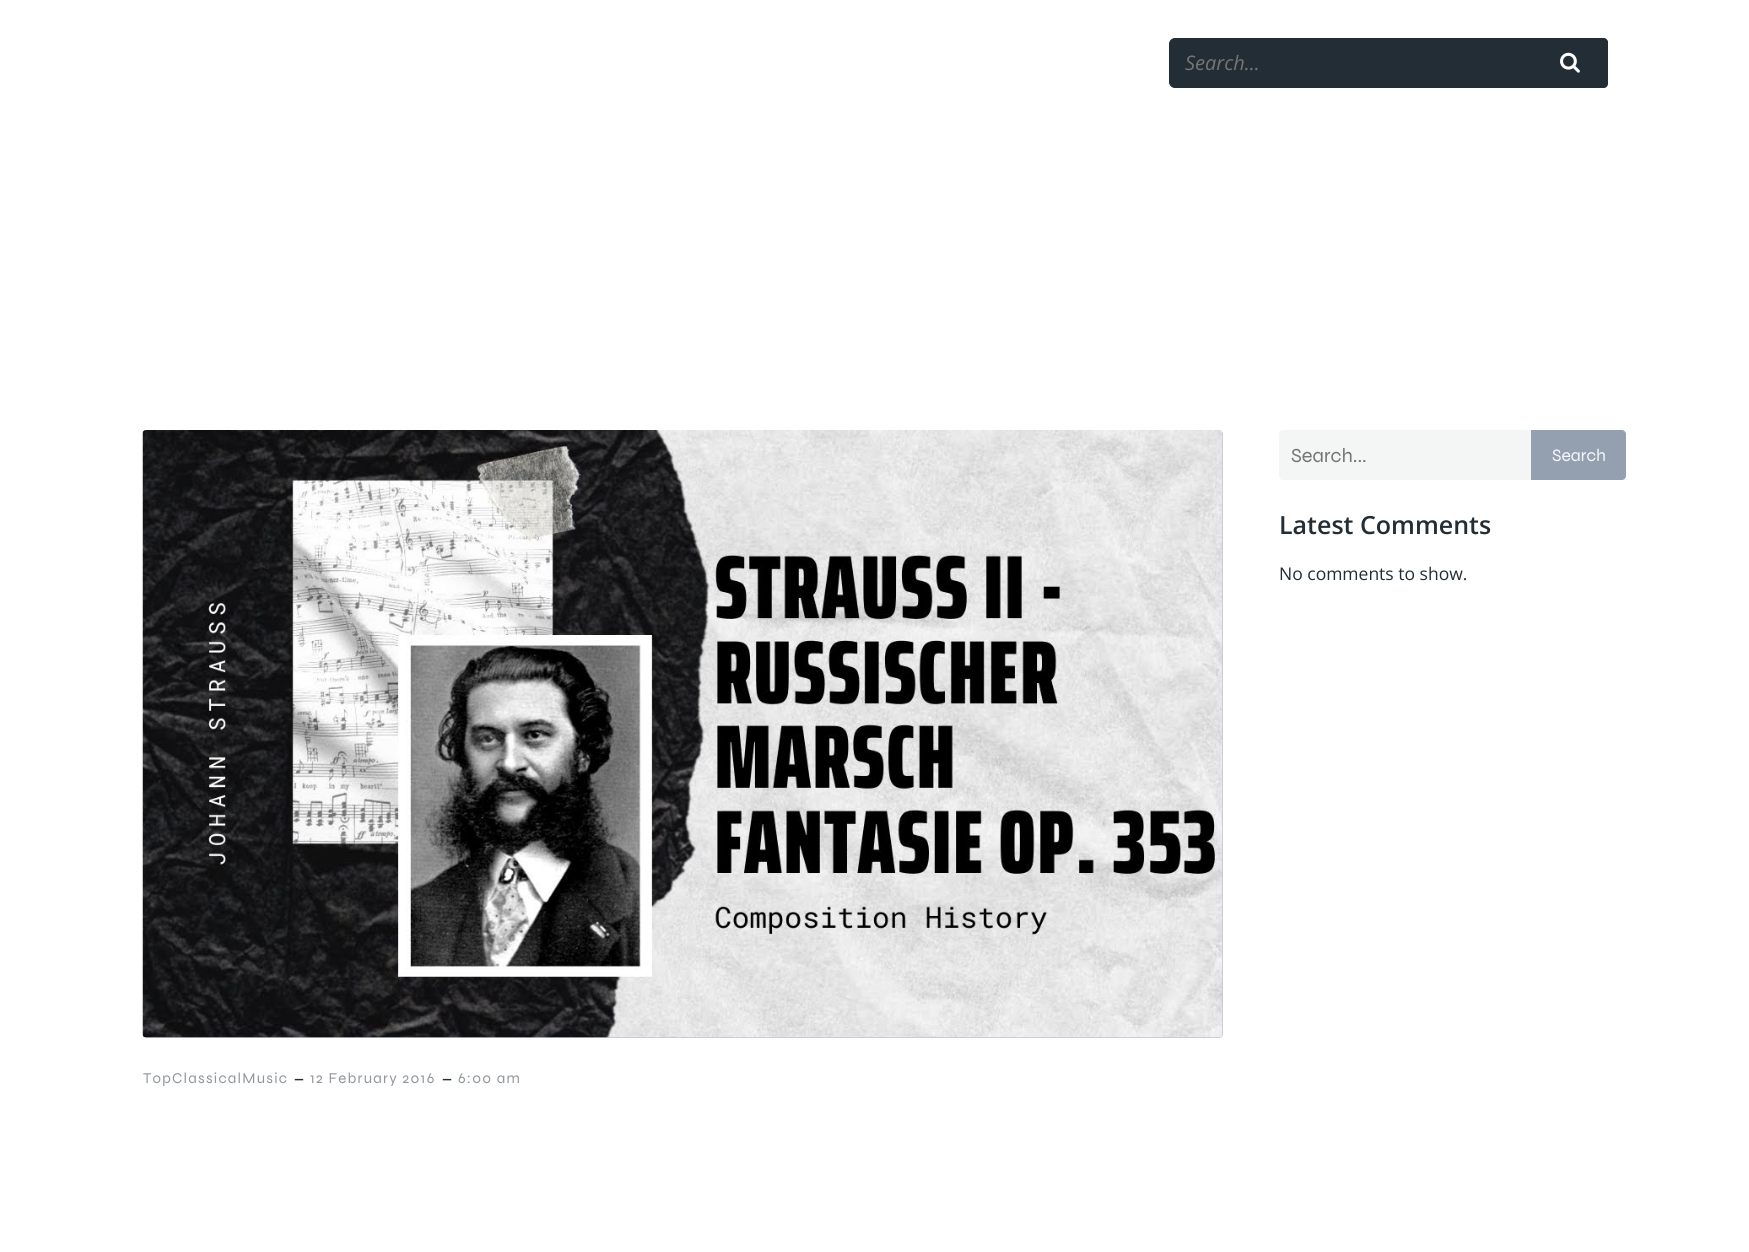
#include <cairo/cairo.h>
#include <math.h>
#include <stddef.h>


static void draw_spaced(cairo_t *cr, double x, double y, const char *s, double letter, double word) {
  cairo_move_to(cr, x, y);
  while (*s) {
    char ch[5] = {0};
    int n = 0;
    do ch[n++] = *s++; while ((*s & 0xC0) == 0x80);
    cairo_show_text(cr, ch);
    cairo_rel_move_to(cr, letter + word * (*ch == ' '), 0);
  }
}

static void rounded_rect(cairo_t *cr, double x, double y, double w, double h, double r) {
  cairo_new_sub_path(cr);
  cairo_arc(cr, x + w - r, y + h - r, r, 0, M_PI / 2);
  cairo_arc(cr, x + r, y + h - r, r, M_PI / 2, M_PI);
  cairo_arc(cr, x + r, y + r, r, M_PI, 1.5 * M_PI);
  cairo_arc(cr, x + w - r, y + r, r, 1.5 * M_PI, 2 * M_PI);
  cairo_close_path(cr);
}

static void draw_image(cairo_t *cr, const char *path, double x, double y, double w, double h) {
  cairo_surface_t *image = cairo_image_surface_create_from_png(path);
  cairo_save(cr);
  cairo_set_source_surface(cr, image, x, y);
  cairo_rectangle(cr, x, y, w, h);
  cairo_fill(cr);
  cairo_restore(cr);
  cairo_surface_destroy(image);
}

static void draw(cairo_t *cr) {
  cairo_set_source_rgb(cr, 1, 1, 1);
  cairo_paint(cr);
  cairo_set_source_rgb(cr, 35 / 255.0, 45 / 255.0, 54 / 255.0);
  cairo_new_path(cr);
  cairo_move_to(cr, 1175, 38.5);
  cairo_line_to(cr, 1532.5, 38.5);
  cairo_line_to(cr, 1532.5, 87.5);
  cairo_line_to(cr, 1175, 87.5);
  cairo_curve_to(cr, 1172, 87.5, 1169.5, 85, 1169.5, 82);
  cairo_line_to(cr, 1169.5, 44);
  cairo_curve_to(cr, 1169.5, 41, 1172, 38.5, 1175, 38.5);
  cairo_close_path(cr);
  cairo_fill_preserve(cr);
  cairo_set_line_width(cr, 1);
  cairo_stroke(cr);
  cairo_new_path(cr);
  cairo_move_to(cr, 1533, 38);
  cairo_line_to(cr, 1604, 38);
  cairo_curve_to(cr, 1606, 38, 1608, 40, 1608, 42);
  cairo_line_to(cr, 1608, 84);
  cairo_curve_to(cr, 1608, 86, 1606, 88, 1604, 88);
  cairo_line_to(cr, 1533, 88);
  cairo_close_path(cr);
  cairo_fill(cr);
  draw_image(cr, "images/1.png", 1560, 52, 20, 21);
  cairo_set_source_rgb(cr, 244 / 255.0, 245 / 255.0, 245 / 255.0);
  cairo_new_path(cr);
  cairo_move_to(cr, 1283, 430);
  cairo_line_to(cr, 1531, 430);
  cairo_line_to(cr, 1531, 480);
  cairo_line_to(cr, 1283, 480);
  cairo_curve_to(cr, 1281, 480, 1279, 478, 1279, 476);
  cairo_line_to(cr, 1279, 434);
  cairo_curve_to(cr, 1279, 432, 1281, 430, 1283, 430);
  cairo_close_path(cr);
  cairo_fill(cr);
  cairo_set_source_rgb(cr, 148 / 255.0, 159 / 255.0, 176 / 255.0);
  cairo_new_path(cr);
  cairo_move_to(cr, 1531, 430);
  cairo_line_to(cr, 1622, 430);
  cairo_curve_to(cr, 1624, 430, 1626, 432, 1626, 434);
  cairo_line_to(cr, 1626, 476);
  cairo_curve_to(cr, 1626, 478, 1624, 480, 1622, 480);
  cairo_line_to(cr, 1531, 480);
  cairo_close_path(cr);
  cairo_fill(cr);
  cairo_set_source_rgb(cr, 190 / 255.0, 197 / 255.0, 211 / 255.0);
  rounded_rect(cr, 143, 430, 1080, 608, 4);
  cairo_fill(cr);
  draw_image(cr, "images/2.png", 142, 430, 1081, 608);
  cairo_select_font_face(cr, "Open Sans", CAIRO_FONT_SLANT_ITALIC, CAIRO_FONT_WEIGHT_NORMAL);
  cairo_set_font_size(cr, 20);
  cairo_set_source_rgb(cr, 117 / 255.0, 117 / 255.0, 117 / 255.0);
  cairo_move_to(cr, 1185, 70);
  cairo_show_text(cr, "Search...");
  cairo_select_font_face(cr, "Syne", CAIRO_FONT_SLANT_NORMAL, CAIRO_FONT_WEIGHT_NORMAL);
  cairo_move_to(cr, 1291, 462);
  cairo_show_text(cr, "Search...");
  cairo_set_font_size(cr, 17.5);
  cairo_set_source_rgb(cr, 246 / 255.0, 248 / 255.0, 250 / 255.0);
  cairo_move_to(cr, 1552, 461);
  cairo_show_text(cr, "Search");
  cairo_select_font_face(cr, "Open Sans SemiBold", CAIRO_FONT_SLANT_NORMAL, CAIRO_FONT_WEIGHT_NORMAL);
  cairo_set_font_size(cr, 25);
  cairo_set_source_rgb(cr, 35 / 255.0, 45 / 255.0, 54 / 255.0);
  cairo_move_to(cr, 1279, 534);
  cairo_show_text(cr, "Latest Comments");
  cairo_select_font_face(cr, "Open Sans", CAIRO_FONT_SLANT_NORMAL, CAIRO_FONT_WEIGHT_NORMAL);
  cairo_set_font_size(cr, 17.5);
  cairo_move_to(cr, 1279, 580);
  cairo_show_text(cr, "No comments to show.");
  cairo_select_font_face(cr, "Syne", CAIRO_FONT_SLANT_NORMAL, CAIRO_FONT_WEIGHT_NORMAL);
  cairo_set_font_size(cr, 15);
  cairo_set_source_rgb(cr, 145 / 255.0, 150 / 255.0, 155 / 255.0);
  draw_spaced(cr, 143, 1083, "TopClassicalMusic", 1.25, 0);
  cairo_select_font_face(cr, "Open Sans", CAIRO_FONT_SLANT_NORMAL, CAIRO_FONT_WEIGHT_NORMAL);
  cairo_set_font_size(cr, 20);
  cairo_set_source_rgb(cr, 35 / 255.0, 45 / 255.0, 54 / 255.0);
  cairo_move_to(cr, 294, 1085);
  cairo_show_text(cr, "–");
  cairo_select_font_face(cr, "Syne", CAIRO_FONT_SLANT_NORMAL, CAIRO_FONT_WEIGHT_NORMAL);
  cairo_set_font_size(cr, 15);
  cairo_set_source_rgb(cr, 145 / 255.0, 150 / 255.0, 155 / 255.0);
  draw_spaced(cr, 310, 1083, "12 February 2016", 1.25, 0);
  cairo_select_font_face(cr, "Open Sans", CAIRO_FONT_SLANT_NORMAL, CAIRO_FONT_WEIGHT_NORMAL);
  cairo_set_font_size(cr, 20);
  cairo_set_source_rgb(cr, 35 / 255.0, 45 / 255.0, 54 / 255.0);
  cairo_move_to(cr, 442, 1085);
  cairo_show_text(cr, "–");
  cairo_select_font_face(cr, "Syne", CAIRO_FONT_SLANT_NORMAL, CAIRO_FONT_WEIGHT_NORMAL);
  cairo_set_font_size(cr, 15);
  cairo_set_source_rgb(cr, 145 / 255.0, 150 / 255.0, 155 / 255.0);
  draw_spaced(cr, 458, 1083, "6:00 am", 1.25, 0);
}

int main(void) {
  cairo_surface_t *surface = cairo_image_surface_create(CAIRO_FORMAT_RGB24, 1749, 1252);
  cairo_t *cr = cairo_create(surface);
  cairo_font_options_t *options = cairo_font_options_create();
  cairo_font_options_set_hint_metrics(options, CAIRO_HINT_METRICS_OFF);
  cairo_font_options_set_hint_style(options, CAIRO_HINT_STYLE_NONE);
  cairo_set_font_options(cr, options);
  cairo_set_miter_limit(cr, 4);
  draw(cr);
  cairo_surface_write_to_png(surface, "out.png");
  cairo_font_options_destroy(options);
  cairo_destroy(cr);
  cairo_surface_destroy(surface);
  return 0;
}
